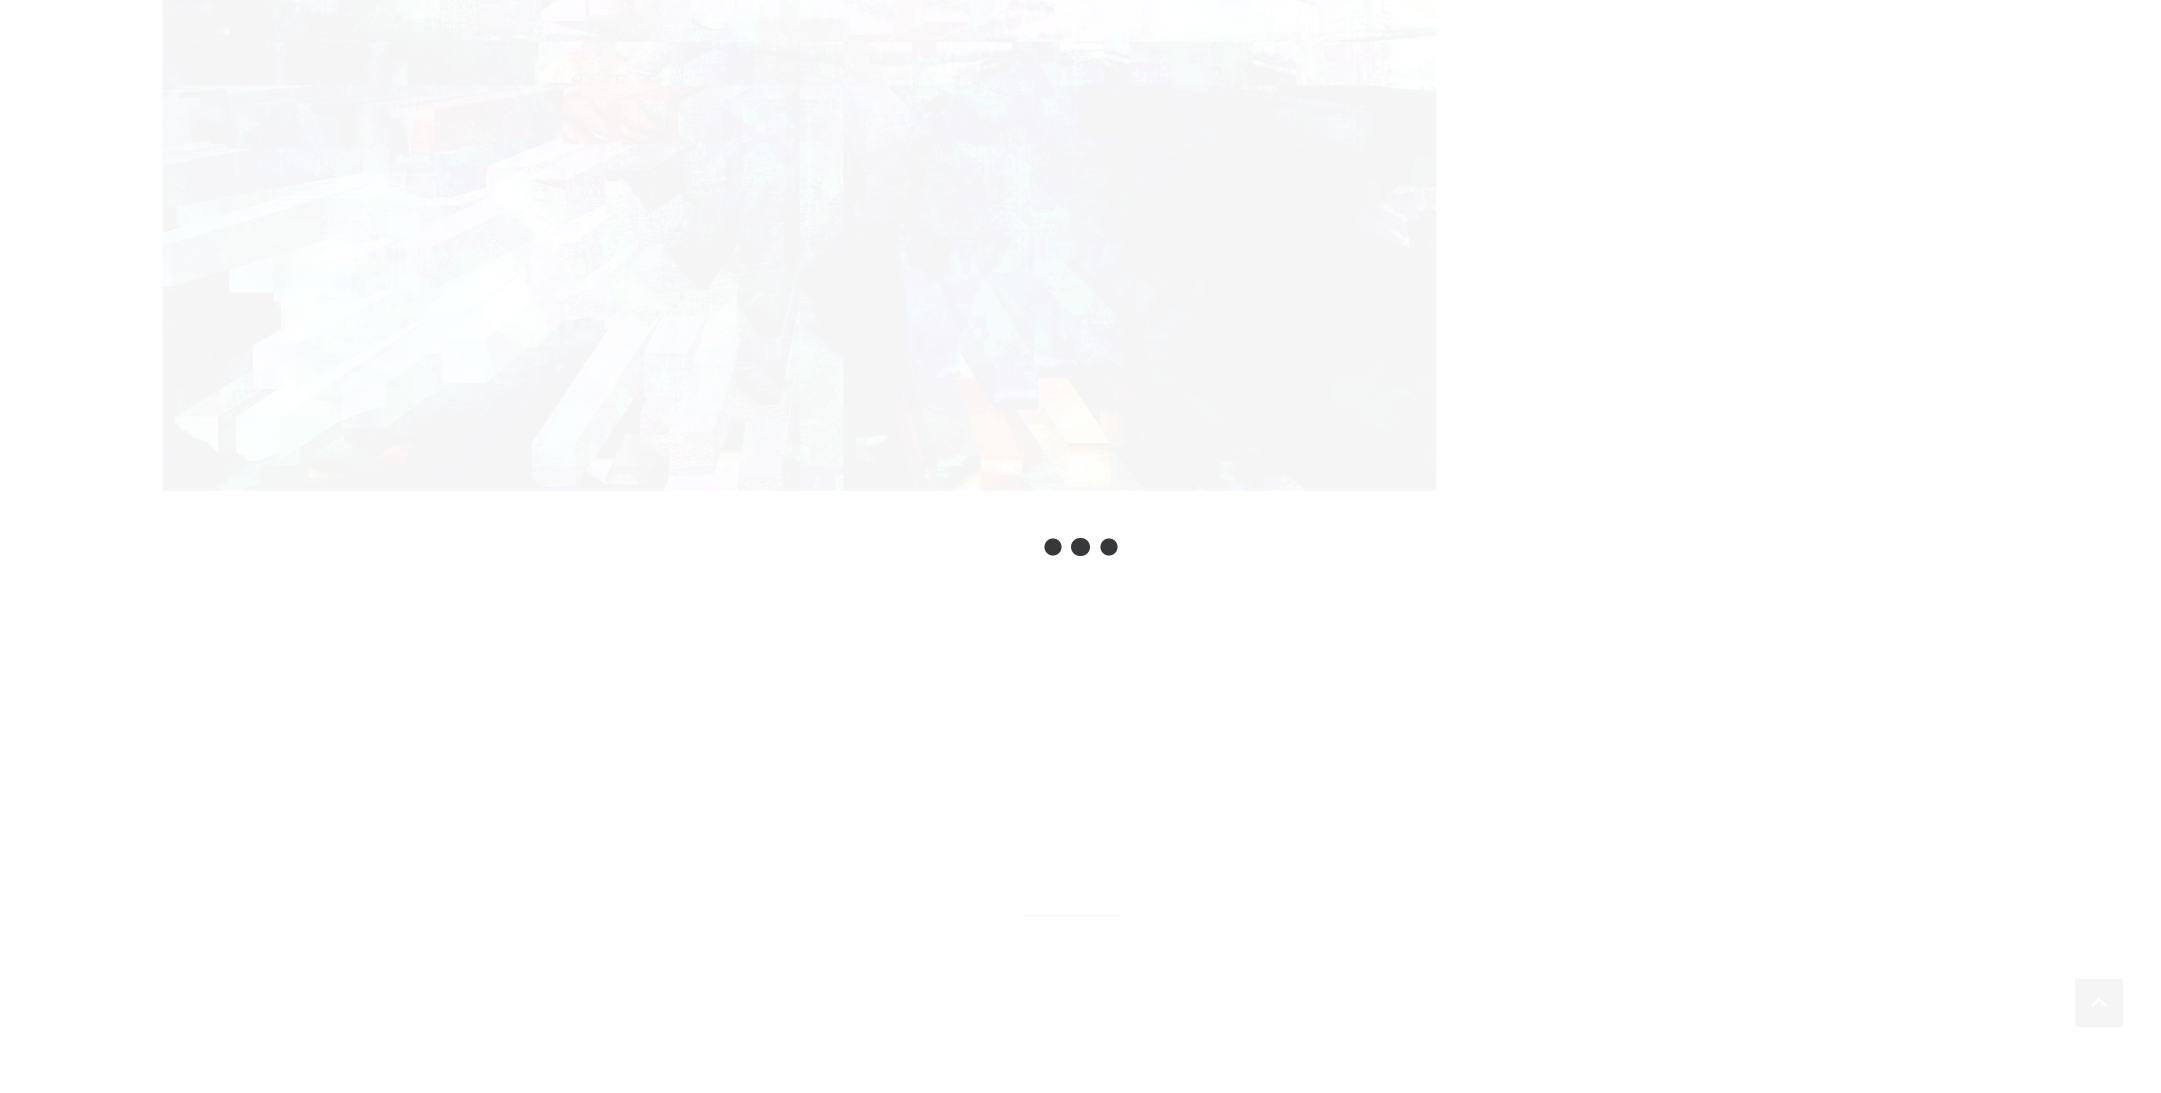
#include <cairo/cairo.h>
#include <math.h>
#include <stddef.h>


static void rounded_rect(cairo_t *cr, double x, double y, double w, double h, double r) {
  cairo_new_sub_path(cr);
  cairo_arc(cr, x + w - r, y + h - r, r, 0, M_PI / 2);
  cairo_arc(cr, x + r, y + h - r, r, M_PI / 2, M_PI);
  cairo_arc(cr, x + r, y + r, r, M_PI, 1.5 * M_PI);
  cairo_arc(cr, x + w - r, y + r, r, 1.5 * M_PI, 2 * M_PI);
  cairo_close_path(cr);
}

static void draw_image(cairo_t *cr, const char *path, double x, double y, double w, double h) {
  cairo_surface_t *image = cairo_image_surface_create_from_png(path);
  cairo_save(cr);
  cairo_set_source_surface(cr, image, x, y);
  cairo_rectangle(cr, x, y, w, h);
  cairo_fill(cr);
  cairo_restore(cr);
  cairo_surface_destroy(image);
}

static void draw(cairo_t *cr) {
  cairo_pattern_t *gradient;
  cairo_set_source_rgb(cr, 1, 1, 1);
  cairo_paint(cr);
  draw_image(cr, "images/1.png", 162, 0, 1275, 491);
  cairo_set_source_rgb(cr, 246 / 255.0, 246 / 255.0, 246 / 255.0);
  cairo_rectangle(cr, 1024, 915, 96, 1);
  cairo_fill(cr);
  gradient = cairo_pattern_create_radial(1109, 547, 0, 1109, 547, 9);
  cairo_pattern_add_color_stop_rgba(gradient, 0.9, 54 / 255.0, 56 / 255.0, 58 / 255.0, 1);
  cairo_pattern_add_color_stop_rgba(gradient, 1, 1, 1, 1, 1);
  cairo_set_source(cr, gradient);
  cairo_pattern_destroy(gradient);
  cairo_rectangle(cr, 1100, 538, 18, 18);
  cairo_fill(cr);
  gradient = cairo_pattern_create_radial(1053, 547, 0, 1053, 547, 9);
  cairo_pattern_add_color_stop_rgba(gradient, 0.9, 54 / 255.0, 56 / 255.0, 58 / 255.0, 1);
  cairo_pattern_add_color_stop_rgba(gradient, 1, 1, 1, 1, 1);
  cairo_set_source(cr, gradient);
  cairo_pattern_destroy(gradient);
  cairo_rectangle(cr, 1044, 538, 18, 18);
  cairo_fill(cr);
  cairo_set_source_rgb(cr, 54 / 255.0, 56 / 255.0, 58 / 255.0);
  rounded_rect(cr, 1071, 538, 19, 18, 9);
  cairo_fill(cr);
  cairo_set_source_rgb(cr, 245 / 255.0, 245 / 255.0, 245 / 255.0);
  cairo_rectangle(cr, 2075, 979, 48, 48);
  cairo_fill(cr);
  draw_image(cr, "images/2.png", 2091, 997, 16, 10);
}

int main(void) {
  cairo_surface_t *surface = cairo_image_surface_create(CAIRO_FORMAT_RGB24, 2161, 1093);
  cairo_t *cr = cairo_create(surface);
  cairo_font_options_t *options = cairo_font_options_create();
  cairo_font_options_set_hint_metrics(options, CAIRO_HINT_METRICS_OFF);
  cairo_font_options_set_hint_style(options, CAIRO_HINT_STYLE_NONE);
  cairo_set_font_options(cr, options);
  cairo_set_miter_limit(cr, 4);
  draw(cr);
  cairo_surface_write_to_png(surface, "out.png");
  cairo_font_options_destroy(options);
  cairo_destroy(cr);
  cairo_surface_destroy(surface);
  return 0;
}
